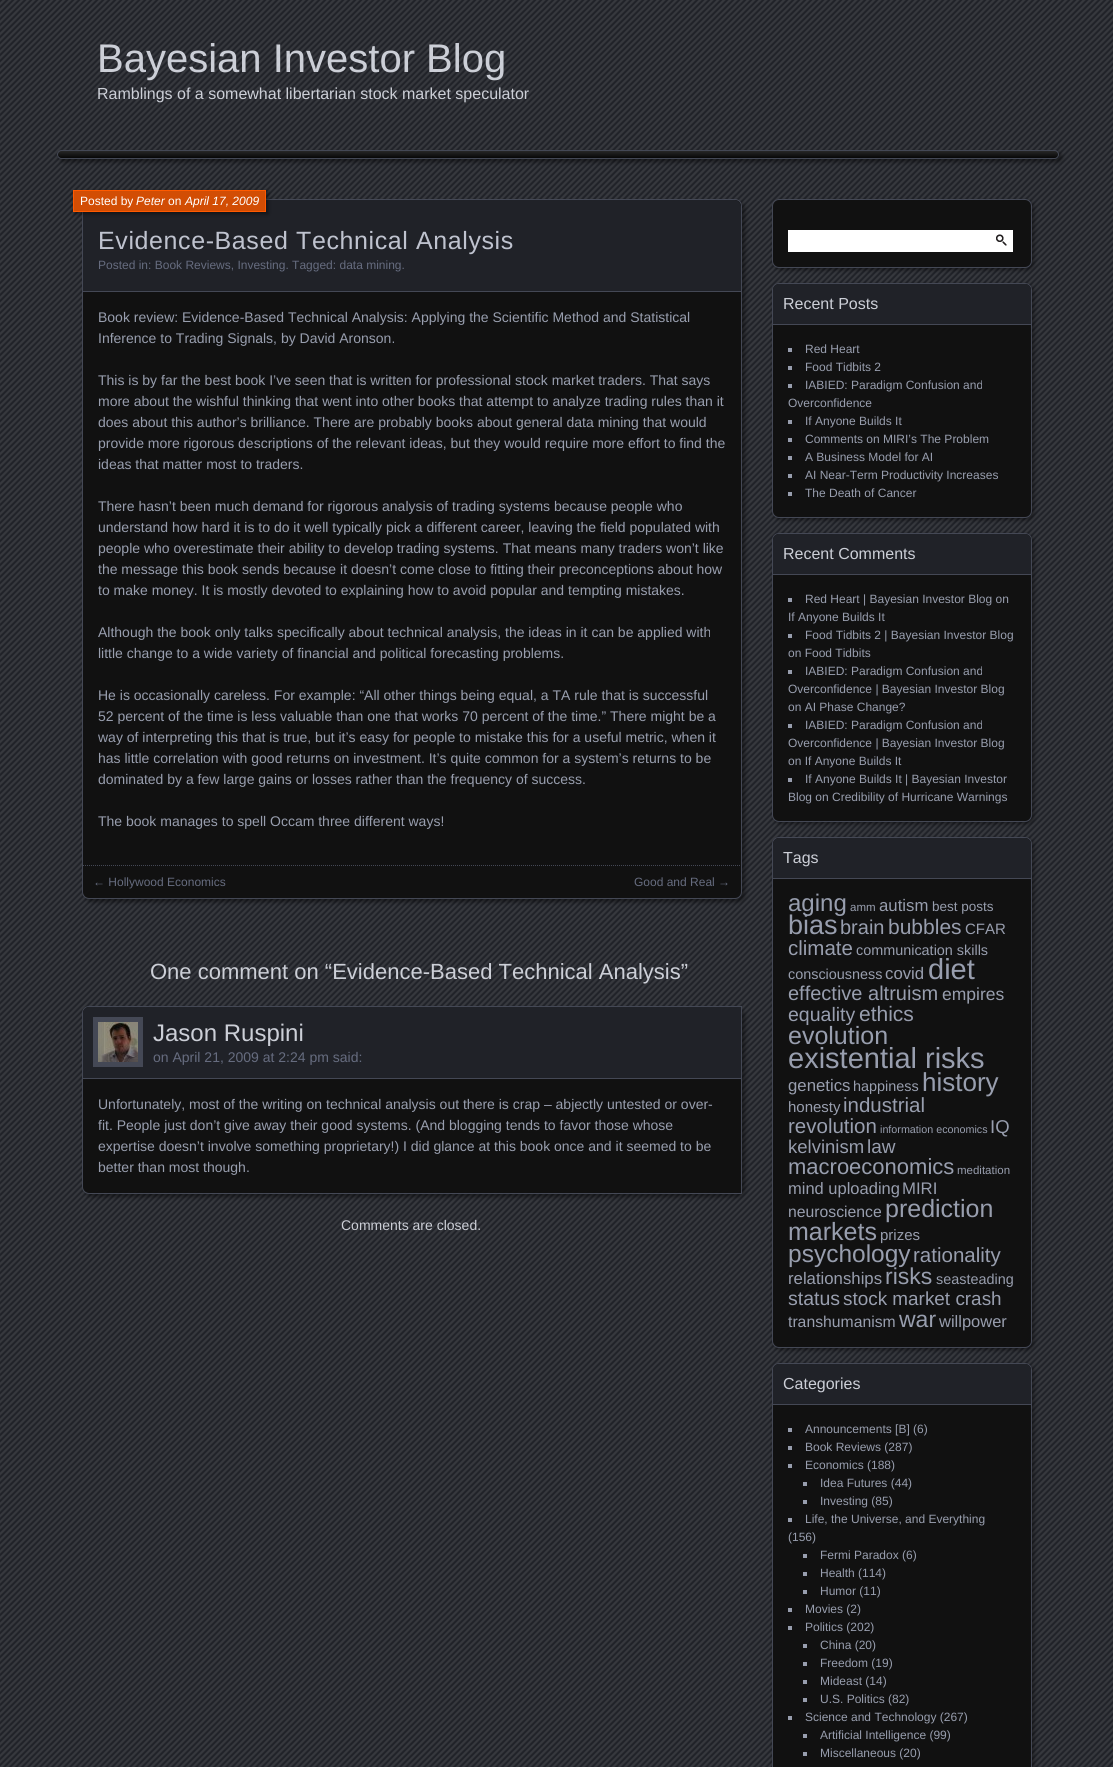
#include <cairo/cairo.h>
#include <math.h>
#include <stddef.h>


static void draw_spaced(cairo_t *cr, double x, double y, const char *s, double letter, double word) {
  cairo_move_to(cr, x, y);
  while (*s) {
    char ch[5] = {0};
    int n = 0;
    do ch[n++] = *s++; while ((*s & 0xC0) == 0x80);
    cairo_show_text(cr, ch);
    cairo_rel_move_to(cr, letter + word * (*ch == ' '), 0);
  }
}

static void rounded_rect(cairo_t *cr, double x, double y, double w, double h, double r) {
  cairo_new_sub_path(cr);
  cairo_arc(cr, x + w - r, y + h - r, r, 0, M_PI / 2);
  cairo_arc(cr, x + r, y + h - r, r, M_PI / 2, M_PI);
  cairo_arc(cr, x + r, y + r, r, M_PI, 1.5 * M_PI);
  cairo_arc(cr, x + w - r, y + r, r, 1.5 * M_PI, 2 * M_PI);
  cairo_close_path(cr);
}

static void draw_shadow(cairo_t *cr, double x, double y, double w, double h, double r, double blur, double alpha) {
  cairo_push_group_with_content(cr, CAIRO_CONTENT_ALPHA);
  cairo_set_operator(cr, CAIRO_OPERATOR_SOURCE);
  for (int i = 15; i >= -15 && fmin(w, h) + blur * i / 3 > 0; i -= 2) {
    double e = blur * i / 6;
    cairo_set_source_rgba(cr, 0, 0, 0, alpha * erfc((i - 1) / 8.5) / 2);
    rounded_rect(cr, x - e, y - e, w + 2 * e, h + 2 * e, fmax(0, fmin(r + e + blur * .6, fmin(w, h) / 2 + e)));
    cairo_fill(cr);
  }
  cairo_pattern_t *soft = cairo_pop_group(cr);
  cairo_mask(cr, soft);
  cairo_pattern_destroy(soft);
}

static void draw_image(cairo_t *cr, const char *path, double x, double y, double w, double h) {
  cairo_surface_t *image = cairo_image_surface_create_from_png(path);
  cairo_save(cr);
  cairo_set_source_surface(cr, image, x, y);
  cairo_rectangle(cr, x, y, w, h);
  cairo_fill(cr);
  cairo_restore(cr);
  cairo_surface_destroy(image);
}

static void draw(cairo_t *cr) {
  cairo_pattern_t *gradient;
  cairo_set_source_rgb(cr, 32 / 255.0, 34 / 255.0, 40 / 255.0);
  cairo_paint(cr);
  draw_image(cr, "images/1.png", 0, 0, 1113, 1767);
  cairo_set_source_rgb(cr, 0, 0, 0);
  draw_shadow(cr, 60, 153, 1002, 9, 4.5, 2, 0.45);
  cairo_save(cr);
  rounded_rect(cr, 57, 150, 1002, 9, 4.5);
  cairo_clip(cr);
  gradient = cairo_pattern_create_linear(558, 151, 558, 158);
  cairo_pattern_add_color_stop_rgba(gradient, 0.01, 39 / 255.0, 39 / 255.0, 39 / 255.0, 1);
  cairo_pattern_add_color_stop_rgba(gradient, 1, 7 / 255.0, 7 / 255.0, 7 / 255.0, 1);
  cairo_set_source(cr, gradient);
  cairo_pattern_destroy(gradient);
  cairo_rectangle(cr, 57, 151, 1002, 7);
  cairo_fill(cr);
  cairo_restore(cr);
  rounded_rect(cr, 57.5, 150.5, 1001, 8, 4);
  cairo_set_source_rgb(cr, 68 / 255.0, 72 / 255.0, 85 / 255.0);
  cairo_set_line_width(cr, 1);
  cairo_stroke(cr);
  cairo_set_source_rgb(cr, 0, 0, 0);
  draw_shadow(cr, 85, 202, 660, 700, 7, 2, 0.45);
  cairo_set_source_rgb(cr, 17 / 255.0, 17 / 255.0, 17 / 255.0);
  rounded_rect(cr, 82.5, 199.5, 659, 699, 6.5);
  cairo_fill_preserve(cr);
  cairo_set_source_rgb(cr, 68 / 255.0, 72 / 255.0, 85 / 255.0);
  cairo_stroke(cr);
  cairo_set_source_rgb(cr, 32 / 255.0, 34 / 255.0, 40 / 255.0);
  cairo_new_path(cr);
  cairo_move_to(cr, 90, 200);
  cairo_line_to(cr, 734, 200);
  cairo_curve_to(cr, 738, 200, 741, 203, 741, 207);
  cairo_line_to(cr, 741, 292);
  cairo_line_to(cr, 83, 292);
  cairo_line_to(cr, 83, 207);
  cairo_curve_to(cr, 83, 203, 86, 200, 90, 200);
  cairo_close_path(cr);
  cairo_fill(cr);
  cairo_set_source_rgb(cr, 68 / 255.0, 72 / 255.0, 85 / 255.0);
  cairo_rectangle(cr, 83, 291, 658, 1);
  cairo_fill(cr);
  cairo_set_source_rgb(cr, 0, 0, 0);
  draw_shadow(cr, 75, 192, 193, 22, 0, 2, 0.45);
  cairo_set_source_rgb(cr, 210 / 255.0, 77 / 255.0, 4 / 255.0);
  cairo_rectangle(cr, 73.5, 190.5, 192, 21);
  cairo_fill_preserve(cr);
  cairo_set_source_rgb(cr, 1, 90 / 255.0, 0);
  cairo_stroke(cr);
  cairo_new_path(cr);
  cairo_move_to(cr, 83, 865.5);
  cairo_line_to(cr, 741, 865.5);
  cairo_set_source_rgb(cr, 68 / 255.0, 72 / 255.0, 85 / 255.0);
  cairo_set_dash(cr, (double[]){1, 1}, 2, 0);
  cairo_stroke(cr);
  cairo_set_source_rgb(cr, 0, 0, 0);
  draw_shadow(cr, 85, 1009, 660, 188, 7, 2, 0.45);
  cairo_set_source_rgb(cr, 17 / 255.0, 17 / 255.0, 17 / 255.0);
  cairo_new_path(cr);
  cairo_move_to(cr, 89, 1006.5);
  cairo_line_to(cr, 741.5, 1006.5);
  cairo_line_to(cr, 741.5, 1193.5);
  cairo_line_to(cr, 89, 1193.5);
  cairo_curve_to(cr, 85.5, 1193.5, 82.5, 1190.5, 82.5, 1187);
  cairo_line_to(cr, 82.5, 1013);
  cairo_curve_to(cr, 82.5, 1009.5, 85.5, 1006.5, 89, 1006.5);
  cairo_close_path(cr);
  cairo_fill_preserve(cr);
  cairo_set_source_rgb(cr, 68 / 255.0, 72 / 255.0, 85 / 255.0);
  cairo_set_dash(cr, NULL, 0, 0);
  cairo_stroke(cr);
  cairo_set_source_rgb(cr, 32 / 255.0, 34 / 255.0, 40 / 255.0);
  cairo_new_path(cr);
  cairo_move_to(cr, 89, 1007);
  cairo_line_to(cr, 741, 1007);
  cairo_line_to(cr, 741, 1079);
  cairo_line_to(cr, 83, 1079);
  cairo_line_to(cr, 83, 1013);
  cairo_curve_to(cr, 83, 1009.5, 85.5, 1007, 89, 1007);
  cairo_close_path(cr);
  cairo_fill(cr);
  cairo_set_source_rgb(cr, 68 / 255.0, 72 / 255.0, 85 / 255.0);
  cairo_rectangle(cr, 83, 1078, 658, 1);
  cairo_fill(cr);
  cairo_rectangle(cr, 95.5, 1019.5, 45, 45);
  cairo_set_line_width(cr, 5);
  cairo_stroke(cr);
  draw_image(cr, "images/2.png", 98, 1022, 40, 40);
  cairo_set_source_rgb(cr, 0, 0, 0);
  draw_shadow(cr, 774, 201, 260, 69, 7, 2, 0.45);
  cairo_set_source_rgb(cr, 17 / 255.0, 17 / 255.0, 17 / 255.0);
  rounded_rect(cr, 772.5, 199.5, 259, 68, 6.5);
  cairo_fill_preserve(cr);
  cairo_set_source_rgb(cr, 68 / 255.0, 72 / 255.0, 85 / 255.0);
  cairo_set_line_width(cr, 1);
  cairo_stroke(cr);
  cairo_set_source_rgb(cr, 1, 1, 1);
  cairo_rectangle(cr, 788, 230, 225, 22);
  cairo_fill(cr);
  draw_image(cr, "images/3.png", 996, 234, 11, 12);
  cairo_set_source_rgb(cr, 0, 0, 0);
  draw_shadow(cr, 774, 285, 260, 235, 7, 2, 0.45);
  cairo_set_source_rgb(cr, 17 / 255.0, 17 / 255.0, 17 / 255.0);
  rounded_rect(cr, 772.5, 283.5, 259, 234, 6.5);
  cairo_fill_preserve(cr);
  cairo_set_source_rgb(cr, 68 / 255.0, 72 / 255.0, 85 / 255.0);
  cairo_stroke(cr);
  cairo_set_source_rgb(cr, 32 / 255.0, 34 / 255.0, 40 / 255.0);
  cairo_new_path(cr);
  cairo_move_to(cr, 779, 284);
  cairo_line_to(cr, 1025, 284);
  cairo_curve_to(cr, 1028.5, 284, 1031, 286.5, 1031, 290);
  cairo_line_to(cr, 1031, 325);
  cairo_line_to(cr, 773, 325);
  cairo_line_to(cr, 773, 290);
  cairo_curve_to(cr, 773, 286.5, 775.5, 284, 779, 284);
  cairo_close_path(cr);
  cairo_fill(cr);
  cairo_set_source_rgb(cr, 68 / 255.0, 72 / 255.0, 85 / 255.0);
  cairo_rectangle(cr, 773, 324, 258, 1);
  cairo_fill(cr);
  cairo_set_source_rgb(cr, 152 / 255.0, 158 / 255.0, 174 / 255.0);
  cairo_rectangle(cr, 788, 348, 4, 4);
  cairo_fill(cr);
  cairo_rectangle(cr, 788, 366, 4, 4);
  cairo_fill(cr);
  cairo_rectangle(cr, 788, 384, 4, 4);
  cairo_fill(cr);
  cairo_rectangle(cr, 788, 420, 4, 4);
  cairo_fill(cr);
  cairo_rectangle(cr, 788, 438, 4, 4);
  cairo_fill(cr);
  cairo_rectangle(cr, 788, 456, 4, 4);
  cairo_fill(cr);
  cairo_rectangle(cr, 788, 474, 4, 4);
  cairo_fill(cr);
  cairo_rectangle(cr, 788, 492, 4, 4);
  cairo_fill(cr);
  cairo_set_source_rgb(cr, 0, 0, 0);
  draw_shadow(cr, 774, 535, 260, 289, 7, 2, 0.45);
  cairo_set_source_rgb(cr, 17 / 255.0, 17 / 255.0, 17 / 255.0);
  rounded_rect(cr, 772.5, 533.5, 259, 288, 6.5);
  cairo_fill_preserve(cr);
  cairo_set_source_rgb(cr, 68 / 255.0, 72 / 255.0, 85 / 255.0);
  cairo_stroke(cr);
  cairo_set_source_rgb(cr, 32 / 255.0, 34 / 255.0, 40 / 255.0);
  cairo_new_path(cr);
  cairo_move_to(cr, 779, 534);
  cairo_line_to(cr, 1025, 534);
  cairo_curve_to(cr, 1028.5, 534, 1031, 536.5, 1031, 540);
  cairo_line_to(cr, 1031, 575);
  cairo_line_to(cr, 773, 575);
  cairo_line_to(cr, 773, 540);
  cairo_curve_to(cr, 773, 536.5, 775.5, 534, 779, 534);
  cairo_close_path(cr);
  cairo_fill(cr);
  cairo_set_source_rgb(cr, 68 / 255.0, 72 / 255.0, 85 / 255.0);
  cairo_rectangle(cr, 773, 574, 258, 1);
  cairo_fill(cr);
  cairo_set_source_rgb(cr, 152 / 255.0, 158 / 255.0, 174 / 255.0);
  cairo_rectangle(cr, 788, 598, 4, 4);
  cairo_fill(cr);
  cairo_rectangle(cr, 788, 634, 4, 4);
  cairo_fill(cr);
  cairo_rectangle(cr, 788, 670, 4, 4);
  cairo_fill(cr);
  cairo_rectangle(cr, 788, 724, 4, 4);
  cairo_fill(cr);
  cairo_rectangle(cr, 788, 778, 4, 4);
  cairo_fill(cr);
  cairo_set_source_rgb(cr, 0, 0, 0);
  draw_shadow(cr, 774, 839, 260, 511, 7, 2, 0.45);
  cairo_set_source_rgb(cr, 17 / 255.0, 17 / 255.0, 17 / 255.0);
  rounded_rect(cr, 772.5, 837.5, 259, 510, 6.5);
  cairo_fill_preserve(cr);
  cairo_set_source_rgb(cr, 68 / 255.0, 72 / 255.0, 85 / 255.0);
  cairo_stroke(cr);
  cairo_set_source_rgb(cr, 32 / 255.0, 34 / 255.0, 40 / 255.0);
  cairo_new_path(cr);
  cairo_move_to(cr, 779, 838);
  cairo_line_to(cr, 1025, 838);
  cairo_curve_to(cr, 1028.5, 838, 1031, 840.5, 1031, 844);
  cairo_line_to(cr, 1031, 879);
  cairo_line_to(cr, 773, 879);
  cairo_line_to(cr, 773, 844);
  cairo_curve_to(cr, 773, 840.5, 775.5, 838, 779, 838);
  cairo_close_path(cr);
  cairo_fill(cr);
  cairo_set_source_rgb(cr, 68 / 255.0, 72 / 255.0, 85 / 255.0);
  cairo_rectangle(cr, 773, 878, 258, 1);
  cairo_fill(cr);
  cairo_set_source_rgb(cr, 0, 0, 0);
  draw_shadow(cr, 774, 1365, 260, 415, 7, 2, 0.45);
  cairo_set_source_rgb(cr, 17 / 255.0, 17 / 255.0, 17 / 255.0);
  rounded_rect(cr, 772.5, 1363.5, 259, 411, 6.5);
  cairo_fill_preserve(cr);
  cairo_set_source_rgb(cr, 68 / 255.0, 72 / 255.0, 85 / 255.0);
  cairo_stroke(cr);
  cairo_set_source_rgb(cr, 32 / 255.0, 34 / 255.0, 40 / 255.0);
  cairo_new_path(cr);
  cairo_move_to(cr, 779, 1364);
  cairo_line_to(cr, 1025, 1364);
  cairo_curve_to(cr, 1028.5, 1364, 1031, 1366.5, 1031, 1370);
  cairo_line_to(cr, 1031, 1405);
  cairo_line_to(cr, 773, 1405);
  cairo_line_to(cr, 773, 1370);
  cairo_curve_to(cr, 773, 1366.5, 775.5, 1364, 779, 1364);
  cairo_close_path(cr);
  cairo_fill(cr);
  cairo_set_source_rgb(cr, 68 / 255.0, 72 / 255.0, 85 / 255.0);
  cairo_rectangle(cr, 773, 1404, 258, 1);
  cairo_fill(cr);
  cairo_set_source_rgb(cr, 152 / 255.0, 158 / 255.0, 174 / 255.0);
  cairo_rectangle(cr, 788, 1428, 4, 4);
  cairo_fill(cr);
  cairo_rectangle(cr, 788, 1446, 4, 4);
  cairo_fill(cr);
  cairo_rectangle(cr, 788, 1464, 4, 4);
  cairo_fill(cr);
  cairo_rectangle(cr, 803, 1482, 4, 4);
  cairo_fill(cr);
  cairo_rectangle(cr, 803, 1500, 4, 4);
  cairo_fill(cr);
  cairo_rectangle(cr, 788, 1518, 4, 4);
  cairo_fill(cr);
  cairo_rectangle(cr, 803, 1554, 4, 4);
  cairo_fill(cr);
  cairo_rectangle(cr, 803, 1572, 4, 4);
  cairo_fill(cr);
  cairo_rectangle(cr, 803, 1590, 4, 4);
  cairo_fill(cr);
  cairo_rectangle(cr, 788, 1608, 4, 4);
  cairo_fill(cr);
  cairo_rectangle(cr, 788, 1626, 4, 4);
  cairo_fill(cr);
  cairo_rectangle(cr, 803, 1644, 4, 4);
  cairo_fill(cr);
  cairo_rectangle(cr, 803, 1662, 4, 4);
  cairo_fill(cr);
  cairo_rectangle(cr, 803, 1680, 4, 4);
  cairo_fill(cr);
  cairo_rectangle(cr, 803, 1698, 4, 4);
  cairo_fill(cr);
  cairo_rectangle(cr, 788, 1716, 4, 4);
  cairo_fill(cr);
  cairo_rectangle(cr, 803, 1734, 4, 4);
  cairo_fill(cr);
  cairo_rectangle(cr, 803, 1752, 4, 4);
  cairo_fill(cr);
  cairo_select_font_face(cr, "Liberation Sans", CAIRO_FONT_SLANT_NORMAL, CAIRO_FONT_WEIGHT_NORMAL);
  cairo_set_font_size(cr, 40);
  cairo_set_source_rgb(cr, 204 / 255.0, 207 / 255.0, 215 / 255.0);
  cairo_move_to(cr, 97, 72);
  cairo_show_text(cr, "Bayesian Investor Blog");
  cairo_set_font_size(cr, 16);
  cairo_move_to(cr, 97, 99);
  cairo_show_text(cr, "Ramblings of a somewhat libertarian stock market speculator");
  cairo_set_font_size(cr, 12);
  cairo_set_source_rgb(cr, 1, 1, 1);
  cairo_move_to(cr, 80, 205);
  cairo_show_text(cr, "Posted by");
  cairo_select_font_face(cr, "Liberation Sans", CAIRO_FONT_SLANT_ITALIC, CAIRO_FONT_WEIGHT_NORMAL);
  cairo_move_to(cr, 136, 205);
  cairo_show_text(cr, "Peter");
  cairo_select_font_face(cr, "Liberation Sans", CAIRO_FONT_SLANT_NORMAL, CAIRO_FONT_WEIGHT_NORMAL);
  cairo_move_to(cr, 168, 205);
  cairo_show_text(cr, "on");
  cairo_select_font_face(cr, "Liberation Sans", CAIRO_FONT_SLANT_ITALIC, CAIRO_FONT_WEIGHT_NORMAL);
  cairo_move_to(cr, 185, 205);
  cairo_show_text(cr, "April 17, 2009");
  cairo_select_font_face(cr, "Liberation Sans", CAIRO_FONT_SLANT_NORMAL, CAIRO_FONT_WEIGHT_NORMAL);
  cairo_set_font_size(cr, 25);
  cairo_set_source_rgb(cr, 191 / 255.0, 195 / 255.0, 207 / 255.0);
  draw_spaced(cr, 98, 249, "Evidence-Based Technical Analysis", 0.6, 0);
  cairo_set_font_size(cr, 12);
  cairo_set_source_rgb(cr, 102 / 255.0, 108 / 255.0, 127 / 255.0);
  cairo_move_to(cr, 98, 269);
  cairo_show_text(cr, "Posted in: Book Reviews, Investing. Tagged: data mining.");
  cairo_set_font_size(cr, 14);
  cairo_set_source_rgb(cr, 152 / 255.0, 158 / 255.0, 174 / 255.0);
  cairo_move_to(cr, 98, 322);
  cairo_show_text(cr, "Book review: Evidence-Based Technical Analysis: Applying the Scientific Method and Statistical");
  cairo_move_to(cr, 98, 343);
  cairo_show_text(cr, "Inference to Trading Signals, by David Aronson.");
  cairo_move_to(cr, 98, 385);
  cairo_show_text(cr, "This is by far the best book I’ve seen that is written for professional stock market traders. That says");
  cairo_move_to(cr, 98, 406);
  cairo_show_text(cr, "more about the wishful thinking that went into other books that attempt to analyze trading rules than it");
  cairo_move_to(cr, 98, 427);
  cairo_show_text(cr, "does about this author’s brilliance. There are probably books about general data mining that would");
  cairo_move_to(cr, 98, 448);
  cairo_show_text(cr, "provide more rigorous descriptions of the relevant ideas, but they would require more effort to find the");
  cairo_move_to(cr, 98, 469);
  cairo_show_text(cr, "ideas that matter most to traders.");
  cairo_move_to(cr, 98, 511);
  cairo_show_text(cr, "There hasn’t been much demand for rigorous analysis of trading systems because people who");
  cairo_move_to(cr, 98, 532);
  cairo_show_text(cr, "understand how hard it is to do it well typically pick a different career, leaving the field populated with");
  cairo_move_to(cr, 98, 553);
  cairo_show_text(cr, "people who overestimate their ability to develop trading systems. That means many traders won’t like");
  cairo_move_to(cr, 98, 574);
  cairo_show_text(cr, "the message this book sends because it doesn’t come close to fitting their preconceptions about how");
  cairo_move_to(cr, 98, 595);
  cairo_show_text(cr, "to make money. It is mostly devoted to explaining how to avoid popular and tempting mistakes.");
  cairo_move_to(cr, 98, 637);
  cairo_show_text(cr, "Although the book only talks specifically about technical analysis, the ideas in it can be applied with");
  cairo_move_to(cr, 98, 658);
  cairo_show_text(cr, "little change to a wide variety of financial and political forecasting problems.");
  cairo_move_to(cr, 98, 700);
  cairo_show_text(cr, "He is occasionally careless. For example: “All other things being equal, a TA rule that is successful");
  cairo_move_to(cr, 98, 721);
  cairo_show_text(cr, "52 percent of the time is less valuable than one that works 70 percent of the time.” There might be a");
  cairo_move_to(cr, 98, 742);
  cairo_show_text(cr, "way of interpreting this that is true, but it’s easy for people to mistake this for a useful metric, when it");
  cairo_move_to(cr, 98, 763);
  cairo_show_text(cr, "has little correlation with good returns on investment. It’s quite common for a system’s returns to be");
  cairo_move_to(cr, 98, 784);
  cairo_show_text(cr, "dominated by a few large gains or losses rather than the frequency of success.");
  cairo_move_to(cr, 98, 826);
  cairo_show_text(cr, "The book manages to spell Occam three different ways!");
  cairo_set_font_size(cr, 12);
  cairo_set_source_rgb(cr, 102 / 255.0, 108 / 255.0, 127 / 255.0);
  cairo_move_to(cr, 93, 886);
  cairo_show_text(cr, "← Hollywood Economics");
  cairo_move_to(cr, 634, 886);
  cairo_show_text(cr, "Good and Real →");
  cairo_set_font_size(cr, 22);
  cairo_set_source_rgb(cr, 204 / 255.0, 207 / 255.0, 215 / 255.0);
  cairo_move_to(cr, 150, 979);
  cairo_show_text(cr, "One comment on “Evidence-Based Technical Analysis”");
  cairo_set_font_size(cr, 24);
  cairo_move_to(cr, 153, 1041);
  cairo_show_text(cr, "Jason Ruspini");
  cairo_set_font_size(cr, 14);
  cairo_set_source_rgb(cr, 102 / 255.0, 108 / 255.0, 127 / 255.0);
  cairo_move_to(cr, 153, 1062);
  cairo_show_text(cr, "on April 21, 2009 at 2:24 pm said:");
  cairo_set_source_rgb(cr, 152 / 255.0, 158 / 255.0, 174 / 255.0);
  cairo_move_to(cr, 98, 1109);
  cairo_show_text(cr, "Unfortunately, most of the writing on technical analysis out there is crap – abjectly untested or over-");
  cairo_move_to(cr, 98, 1130);
  cairo_show_text(cr, "fit. People just don’t give away their good systems. (And blogging tends to favor those whose");
  cairo_move_to(cr, 98, 1151);
  cairo_show_text(cr, "expertise doesn’t involve something proprietary!) I did glance at this book once and it seemed to be");
  cairo_move_to(cr, 98, 1172);
  cairo_show_text(cr, "better than most though.");
  cairo_set_source_rgb(cr, 204 / 255.0, 207 / 255.0, 215 / 255.0);
  cairo_move_to(cr, 341, 1230);
  cairo_show_text(cr, "Comments are closed.");
  cairo_set_font_size(cr, 16);
  cairo_move_to(cr, 783, 309);
  cairo_show_text(cr, "Recent Posts");
  cairo_set_font_size(cr, 12);
  cairo_set_source_rgb(cr, 152 / 255.0, 158 / 255.0, 174 / 255.0);
  cairo_move_to(cr, 805, 353);
  cairo_show_text(cr, "Red Heart");
  cairo_move_to(cr, 805, 371);
  cairo_show_text(cr, "Food Tidbits 2");
  cairo_move_to(cr, 805, 389);
  cairo_show_text(cr, "IABIED: Paradigm Confusion and");
  cairo_move_to(cr, 788, 407);
  cairo_show_text(cr, "Overconfidence");
  cairo_move_to(cr, 805, 425);
  cairo_show_text(cr, "If Anyone Builds It");
  cairo_move_to(cr, 805, 443);
  cairo_show_text(cr, "Comments on MIRI’s The Problem");
  cairo_move_to(cr, 805, 461);
  cairo_show_text(cr, "A Business Model for AI");
  cairo_move_to(cr, 805, 479);
  cairo_show_text(cr, "AI Near-Term Productivity Increases");
  cairo_move_to(cr, 805, 497);
  cairo_show_text(cr, "The Death of Cancer");
  cairo_set_font_size(cr, 16);
  cairo_set_source_rgb(cr, 204 / 255.0, 207 / 255.0, 215 / 255.0);
  cairo_move_to(cr, 783, 559);
  cairo_show_text(cr, "Recent Comments");
  cairo_set_font_size(cr, 12);
  cairo_set_source_rgb(cr, 152 / 255.0, 158 / 255.0, 174 / 255.0);
  cairo_move_to(cr, 805, 603);
  cairo_show_text(cr, "Red Heart | Bayesian Investor Blog on");
  cairo_move_to(cr, 788, 621);
  cairo_show_text(cr, "If Anyone Builds It");
  cairo_move_to(cr, 805, 639);
  cairo_show_text(cr, "Food Tidbits 2 | Bayesian Investor Blog");
  cairo_move_to(cr, 788, 657);
  cairo_show_text(cr, "on Food Tidbits");
  cairo_move_to(cr, 805, 675);
  cairo_show_text(cr, "IABIED: Paradigm Confusion and");
  cairo_move_to(cr, 788, 693);
  cairo_show_text(cr, "Overconfidence | Bayesian Investor Blog");
  cairo_move_to(cr, 788, 711);
  cairo_show_text(cr, "on AI Phase Change?");
  cairo_move_to(cr, 805, 729);
  cairo_show_text(cr, "IABIED: Paradigm Confusion and");
  cairo_move_to(cr, 788, 747);
  cairo_show_text(cr, "Overconfidence | Bayesian Investor Blog");
  cairo_move_to(cr, 788, 765);
  cairo_show_text(cr, "on If Anyone Builds It");
  cairo_move_to(cr, 805, 783);
  cairo_show_text(cr, "If Anyone Builds It | Bayesian Investor");
  cairo_move_to(cr, 788, 801);
  cairo_show_text(cr, "Blog on Credibility of Hurricane Warnings");
  cairo_set_font_size(cr, 16);
  cairo_set_source_rgb(cr, 204 / 255.0, 207 / 255.0, 215 / 255.0);
  cairo_move_to(cr, 783, 863);
  cairo_show_text(cr, "Tags");
  cairo_set_font_size(cr, 24);
  cairo_set_source_rgb(cr, 152 / 255.0, 158 / 255.0, 174 / 255.0);
  cairo_move_to(cr, 788, 911);
  cairo_show_text(cr, "aging");
  cairo_set_font_size(cr, 11.5);
  cairo_move_to(cr, 850, 911);
  cairo_show_text(cr, "amm");
  cairo_set_font_size(cr, 16.75);
  cairo_move_to(cr, 879, 911);
  cairo_show_text(cr, "autism");
  cairo_set_font_size(cr, 13.5);
  cairo_move_to(cr, 932, 911);
  cairo_show_text(cr, "best posts");
  cairo_set_font_size(cr, 27);
  cairo_move_to(cr, 788, 934);
  cairo_show_text(cr, "bias");
  cairo_set_font_size(cr, 20);
  cairo_move_to(cr, 840, 934);
  cairo_show_text(cr, "brain");
  cairo_set_font_size(cr, 21);
  cairo_move_to(cr, 888, 934);
  cairo_show_text(cr, "bubbles");
  cairo_set_font_size(cr, 15);
  cairo_move_to(cr, 965, 934);
  cairo_show_text(cr, "CFAR");
  cairo_set_font_size(cr, 20.5);
  cairo_move_to(cr, 788, 955);
  cairo_show_text(cr, "climate");
  cairo_set_font_size(cr, 14.4);
  cairo_move_to(cr, 856, 955);
  cairo_show_text(cr, "communication skills");
  cairo_move_to(cr, 788, 979);
  cairo_show_text(cr, "consciousness");
  cairo_set_font_size(cr, 16.75);
  cairo_move_to(cr, 885, 979);
  cairo_show_text(cr, "covid");
  cairo_set_font_size(cr, 29);
  cairo_move_to(cr, 928, 979);
  cairo_show_text(cr, "diet");
  cairo_set_font_size(cr, 20);
  cairo_move_to(cr, 788, 1000);
  cairo_show_text(cr, "effective altruism");
  cairo_set_font_size(cr, 17.5);
  cairo_move_to(cr, 942, 1000);
  cairo_show_text(cr, "empires");
  cairo_set_font_size(cr, 19.5);
  cairo_move_to(cr, 788, 1021);
  cairo_show_text(cr, "equality");
  cairo_set_font_size(cr, 21);
  cairo_move_to(cr, 859, 1021);
  cairo_show_text(cr, "ethics");
  cairo_set_font_size(cr, 25);
  cairo_move_to(cr, 788, 1044);
  cairo_show_text(cr, "evolution");
  cairo_set_font_size(cr, 29);
  cairo_move_to(cr, 788, 1068);
  cairo_show_text(cr, "existential risks");
  cairo_set_font_size(cr, 16.75);
  cairo_move_to(cr, 788, 1091);
  cairo_show_text(cr, "genetics");
  cairo_set_font_size(cr, 14.4);
  cairo_move_to(cr, 853, 1091);
  cairo_show_text(cr, "happiness");
  cairo_set_font_size(cr, 26);
  cairo_move_to(cr, 922, 1091);
  cairo_show_text(cr, "history");
  cairo_set_font_size(cr, 15);
  cairo_move_to(cr, 788, 1112);
  cairo_show_text(cr, "honesty");
  cairo_set_font_size(cr, 20.5);
  cairo_move_to(cr, 843, 1112);
  cairo_show_text(cr, "industrial");
  cairo_move_to(cr, 788, 1133);
  cairo_show_text(cr, "revolution");
  cairo_set_font_size(cr, 10.75);
  cairo_move_to(cr, 880, 1133);
  cairo_show_text(cr, "information economics");
  cairo_set_font_size(cr, 18.5);
  cairo_move_to(cr, 990, 1133);
  cairo_show_text(cr, "IQ");
  cairo_move_to(cr, 788, 1153);
  cairo_show_text(cr, "kelvinism");
  cairo_set_font_size(cr, 19);
  cairo_move_to(cr, 867, 1153);
  cairo_show_text(cr, "law");
  cairo_set_font_size(cr, 22);
  cairo_move_to(cr, 788, 1174);
  cairo_show_text(cr, "macroeconomics");
  cairo_set_font_size(cr, 11.5);
  cairo_move_to(cr, 957, 1174);
  cairo_show_text(cr, "meditation");
  cairo_set_font_size(cr, 16.5);
  cairo_move_to(cr, 788, 1194);
  cairo_show_text(cr, "mind uploading");
  cairo_set_font_size(cr, 16.75);
  cairo_move_to(cr, 902, 1194);
  cairo_show_text(cr, "MIRI");
  cairo_set_font_size(cr, 15.75);
  cairo_move_to(cr, 788, 1217);
  cairo_show_text(cr, "neuroscience");
  cairo_set_font_size(cr, 25);
  cairo_move_to(cr, 885, 1217);
  cairo_show_text(cr, "prediction");
  cairo_move_to(cr, 788, 1240);
  cairo_show_text(cr, "markets");
  cairo_set_font_size(cr, 15);
  cairo_move_to(cr, 880, 1240);
  cairo_show_text(cr, "prizes");
  cairo_set_font_size(cr, 24.5);
  cairo_move_to(cr, 788, 1262);
  cairo_show_text(cr, "psychology");
  cairo_set_font_size(cr, 20.5);
  cairo_move_to(cr, 913, 1262);
  cairo_show_text(cr, "rationality");
  cairo_set_font_size(cr, 16.75);
  cairo_move_to(cr, 788, 1284);
  cairo_show_text(cr, "relationships");
  cairo_set_font_size(cr, 23);
  cairo_move_to(cr, 885, 1284);
  cairo_show_text(cr, "risks");
  cairo_set_font_size(cr, 14.4);
  cairo_move_to(cr, 936, 1284);
  cairo_show_text(cr, "seasteading");
  cairo_set_font_size(cr, 19.5);
  cairo_move_to(cr, 788, 1305);
  cairo_show_text(cr, "status");
  cairo_set_font_size(cr, 18.9);
  cairo_move_to(cr, 843, 1305);
  cairo_show_text(cr, "stock market crash");
  cairo_set_font_size(cr, 15.75);
  cairo_move_to(cr, 788, 1327);
  cairo_show_text(cr, "transhumanism");
  cairo_set_font_size(cr, 23);
  cairo_move_to(cr, 899, 1327);
  cairo_show_text(cr, "war");
  cairo_set_font_size(cr, 16.5);
  cairo_move_to(cr, 939, 1327);
  cairo_show_text(cr, "willpower");
  cairo_set_font_size(cr, 16);
  cairo_set_source_rgb(cr, 204 / 255.0, 207 / 255.0, 215 / 255.0);
  cairo_move_to(cr, 783, 1389);
  cairo_show_text(cr, "Categories");
  cairo_set_font_size(cr, 12);
  cairo_set_source_rgb(cr, 152 / 255.0, 158 / 255.0, 174 / 255.0);
  cairo_move_to(cr, 805, 1433);
  cairo_show_text(cr, "Announcements [B] (6)");
  cairo_move_to(cr, 805, 1451);
  cairo_show_text(cr, "Book Reviews (287)");
  cairo_move_to(cr, 805, 1469);
  cairo_show_text(cr, "Economics (188)");
  cairo_move_to(cr, 820, 1487);
  cairo_show_text(cr, "Idea Futures (44)");
  cairo_move_to(cr, 820, 1505);
  cairo_show_text(cr, "Investing (85)");
  cairo_move_to(cr, 805, 1523);
  cairo_show_text(cr, "Life, the Universe, and Everything");
  cairo_move_to(cr, 788, 1541);
  cairo_show_text(cr, "(156)");
  cairo_move_to(cr, 820, 1559);
  cairo_show_text(cr, "Fermi Paradox (6)");
  cairo_move_to(cr, 820, 1577);
  cairo_show_text(cr, "Health (114)");
  cairo_move_to(cr, 820, 1595);
  cairo_show_text(cr, "Humor (11)");
  cairo_move_to(cr, 805, 1613);
  cairo_show_text(cr, "Movies (2)");
  cairo_move_to(cr, 805, 1631);
  cairo_show_text(cr, "Politics (202)");
  cairo_move_to(cr, 820, 1649);
  cairo_show_text(cr, "China (20)");
  cairo_move_to(cr, 820, 1667);
  cairo_show_text(cr, "Freedom (19)");
  cairo_move_to(cr, 820, 1685);
  cairo_show_text(cr, "Mideast (14)");
  cairo_move_to(cr, 820, 1703);
  cairo_show_text(cr, "U.S. Politics (82)");
  cairo_move_to(cr, 805, 1721);
  cairo_show_text(cr, "Science and Technology (267)");
  cairo_move_to(cr, 820, 1739);
  cairo_show_text(cr, "Artificial Intelligence (99)");
  cairo_move_to(cr, 820, 1757);
  cairo_show_text(cr, "Miscellaneous (20)");
}

int main(void) {
  cairo_surface_t *surface = cairo_image_surface_create(CAIRO_FORMAT_RGB24, 1113, 1767);
  cairo_t *cr = cairo_create(surface);
  cairo_font_options_t *options = cairo_font_options_create();
  cairo_font_options_set_hint_metrics(options, CAIRO_HINT_METRICS_OFF);
  cairo_font_options_set_hint_style(options, CAIRO_HINT_STYLE_NONE);
  cairo_set_font_options(cr, options);
  cairo_set_miter_limit(cr, 4);
  draw(cr);
  cairo_surface_write_to_png(surface, "out.png");
  cairo_font_options_destroy(options);
  cairo_destroy(cr);
  cairo_surface_destroy(surface);
  return 0;
}
